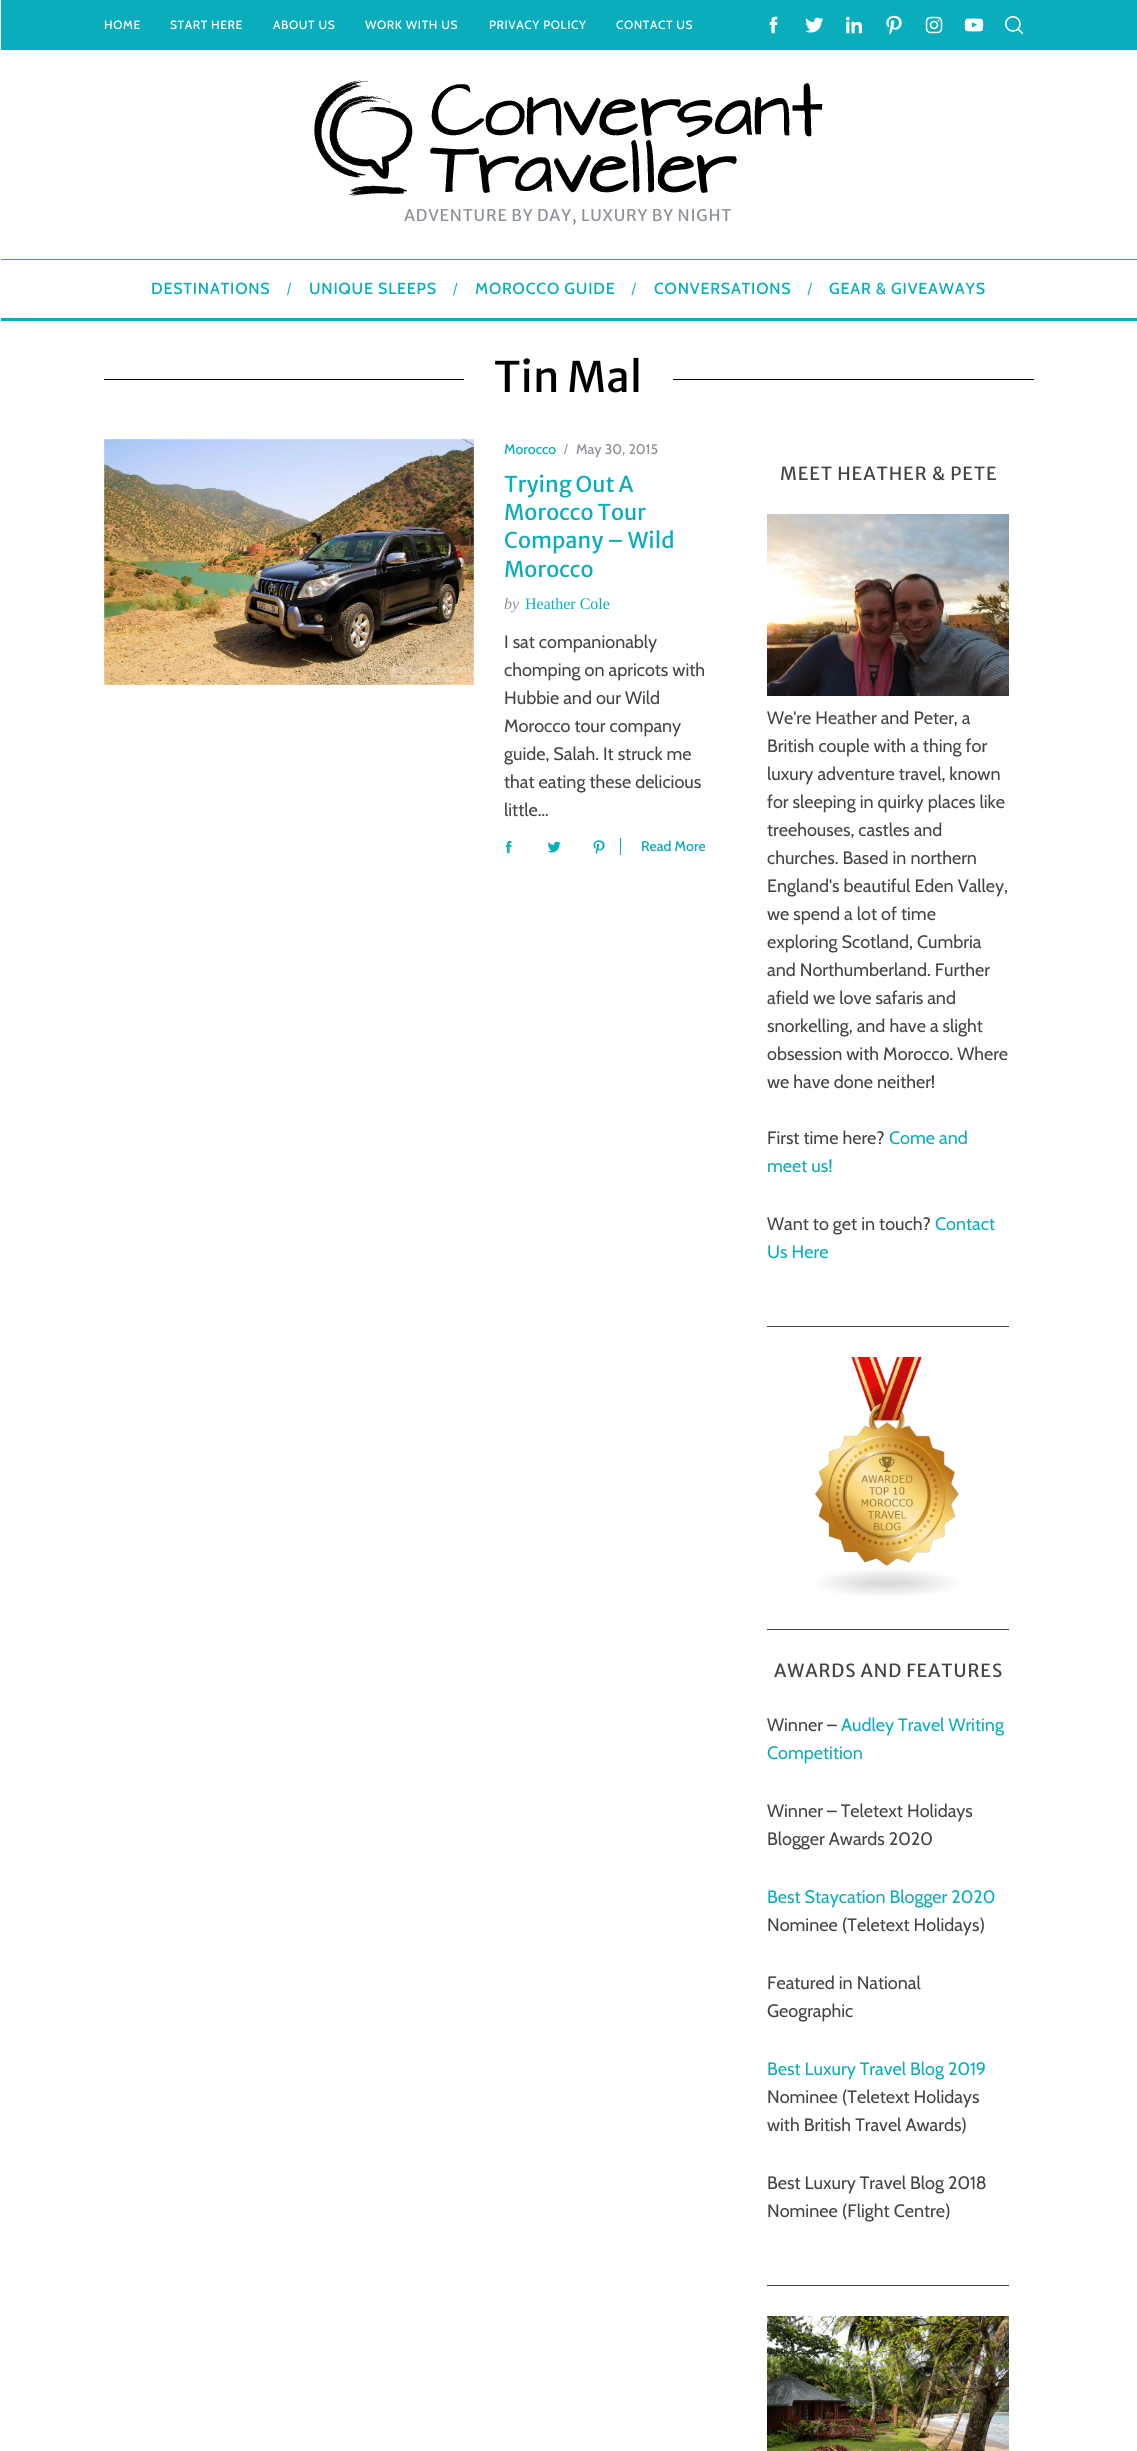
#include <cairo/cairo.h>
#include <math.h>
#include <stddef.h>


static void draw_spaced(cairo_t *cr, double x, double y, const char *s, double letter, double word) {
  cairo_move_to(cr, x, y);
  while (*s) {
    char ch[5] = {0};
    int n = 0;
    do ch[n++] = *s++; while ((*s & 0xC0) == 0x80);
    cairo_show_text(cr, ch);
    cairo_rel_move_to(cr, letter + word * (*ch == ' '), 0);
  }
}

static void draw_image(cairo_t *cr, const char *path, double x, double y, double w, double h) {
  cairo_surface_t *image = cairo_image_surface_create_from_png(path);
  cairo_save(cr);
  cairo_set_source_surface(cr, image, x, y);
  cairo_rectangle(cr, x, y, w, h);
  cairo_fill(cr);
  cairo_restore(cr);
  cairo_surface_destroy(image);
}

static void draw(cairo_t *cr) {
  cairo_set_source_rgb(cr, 1, 1, 1);
  cairo_paint(cr);
  cairo_set_source_rgb(cr, 9 / 255.0, 173 / 255.0, 188 / 255.0);
  cairo_rectangle(cr, 1, 0, 1136, 50);
  cairo_fill(cr);
  draw_image(cr, "images/1.png", 769, 16, 9, 18);
  draw_image(cr, "images/2.png", 805, 17, 19, 16);
  draw_image(cr, "images/3.png", 846, 16, 16, 18);
  draw_image(cr, "images/4.png", 886, 15, 16, 20);
  draw_image(cr, "images/5.png", 925, 16, 18, 18);
  draw_image(cr, "images/6.png", 964, 18, 20, 14);
  draw_image(cr, "images/7.png", 1005, 16, 18, 18);
  draw_image(cr, "images/8.png", 314, 80, 509, 116);
  cairo_rectangle(cr, 0, 259, 1137, 1);
  cairo_fill(cr);
  cairo_rectangle(cr, 0, 318, 1137, 3);
  cairo_fill(cr);
  cairo_set_source_rgb(cr, 1, 1, 1);
  cairo_rectangle(cr, 0, 259, 1, 62);
  cairo_fill(cr);
  cairo_set_source_rgb(cr, 9 / 255.0, 173 / 255.0, 188 / 255.0);
  cairo_new_path(cr);
  cairo_move_to(cr, 290, 282.5);
  cairo_line_to(cr, 291, 283);
  cairo_line_to(cr, 288, 295.5);
  cairo_line_to(cr, 287, 295);
  cairo_close_path(cr);
  cairo_fill(cr);
  cairo_new_path(cr);
  cairo_move_to(cr, 456.5, 282.5);
  cairo_line_to(cr, 457.5, 283);
  cairo_line_to(cr, 454, 295.5);
  cairo_line_to(cr, 453, 295);
  cairo_close_path(cr);
  cairo_fill(cr);
  cairo_new_path(cr);
  cairo_move_to(cr, 635, 282.5);
  cairo_line_to(cr, 636, 283);
  cairo_line_to(cr, 632.5, 295.5);
  cairo_line_to(cr, 631.5, 295);
  cairo_close_path(cr);
  cairo_fill(cr);
  cairo_new_path(cr);
  cairo_move_to(cr, 811, 282.5);
  cairo_line_to(cr, 812, 283);
  cairo_line_to(cr, 808.5, 295.5);
  cairo_line_to(cr, 807.5, 295);
  cairo_close_path(cr);
  cairo_fill(cr);
  cairo_set_source_rgb(cr, 0, 0, 0);
  cairo_rectangle(cr, 104, 379, 360, 1);
  cairo_fill(cr);
  cairo_rectangle(cr, 673, 379, 361, 1);
  cairo_fill(cr);
  draw_image(cr, "images/9.png", 104, 439, 370, 246);
  draw_image(cr, "images/10.png", 505, 841, 7, 12);
  draw_image(cr, "images/11.png", 547, 841, 14, 12);
  draw_image(cr, "images/12.png", 593, 840, 12, 14);
  cairo_set_source_rgb(cr, 9 / 255.0, 173 / 255.0, 188 / 255.0);
  cairo_rectangle(cr, 620, 838, 1, 17);
  cairo_fill(cr);
  cairo_set_source_rgb(cr, 68 / 255.0, 68 / 255.0, 68 / 255.0);
  cairo_rectangle(cr, 767, 1326, 242, 1);
  cairo_fill(cr);
  draw_image(cr, "images/13.png", 767, 514, 242, 182);
  cairo_rectangle(cr, 767, 1629, 242, 1);
  cairo_fill(cr);
  draw_image(cr, "images/14.png", 815, 1357, 144, 239);
  cairo_rectangle(cr, 767, 2285, 242, 1);
  cairo_fill(cr);
  draw_image(cr, "images/15.png", 767, 2316, 242, 135);
  cairo_select_font_face(cr, "Cabin Medium", CAIRO_FONT_SLANT_NORMAL, CAIRO_FONT_WEIGHT_NORMAL);
  cairo_set_font_size(cr, 12);
  cairo_set_source_rgb(cr, 1, 1, 1);
  draw_spaced(cr, 104, 29, "HOME", 0.6, 0);
  draw_spaced(cr, 170, 29, "START HERE", 0.6, 0);
  draw_spaced(cr, 273, 29, "ABOUT US", 0.6, 0);
  draw_spaced(cr, 365, 29, "WORK WITH US", 0.6, 0);
  draw_spaced(cr, 489, 29, "PRIVACY POLICY", 0.6, 0);
  draw_spaced(cr, 616, 29, "CONTACT US", 0.6, 0);
  cairo_select_font_face(cr, "Merriweather Sans", CAIRO_FONT_SLANT_NORMAL, CAIRO_FONT_WEIGHT_NORMAL);
  cairo_set_font_size(cr, 16);
  cairo_set_source_rgb(cr, 140 / 255.0, 145 / 255.0, 155 / 255.0);
  draw_spaced(cr, 404, 221, "ADVENTURE BY DAY, LUXURY BY NIGHT", 0.8, 0);
  cairo_select_font_face(cr, "Cabin Medium", CAIRO_FONT_SLANT_NORMAL, CAIRO_FONT_WEIGHT_NORMAL);
  cairo_set_source_rgb(cr, 9 / 255.0, 173 / 255.0, 188 / 255.0);
  draw_spaced(cr, 151, 294, "DESTINATIONS", 0.8, 0);
  draw_spaced(cr, 309, 294, "UNIQUE SLEEPS", 0.8, 0);
  draw_spaced(cr, 475, 294, "MOROCCO GUIDE", 0.8, 0);
  draw_spaced(cr, 654, 294, "CONVERSATIONS", 0.8, 0);
  draw_spaced(cr, 829, 294, "GEAR & GIVEAWAYS", 0.8, 0);
  cairo_select_font_face(cr, "Merriweather Sans", CAIRO_FONT_SLANT_NORMAL, CAIRO_FONT_WEIGHT_NORMAL);
  cairo_set_font_size(cr, 42);
  cairo_set_source_rgb(cr, 0, 0, 0);
  cairo_move_to(cr, 494, 392);
  cairo_show_text(cr, "Tin Mal");
  cairo_select_font_face(cr, "Cabin Medium", CAIRO_FONT_SLANT_NORMAL, CAIRO_FONT_WEIGHT_NORMAL);
  cairo_set_font_size(cr, 14);
  cairo_set_source_rgb(cr, 9 / 255.0, 173 / 255.0, 188 / 255.0);
  cairo_move_to(cr, 504, 454);
  cairo_show_text(cr, "Morocco");
  cairo_select_font_face(cr, "Liberation Sans", CAIRO_FONT_SLANT_NORMAL, CAIRO_FONT_WEIGHT_NORMAL);
  cairo_set_source_rgb(cr, 140 / 255.0, 145 / 255.0, 155 / 255.0);
  cairo_move_to(cr, 564, 454);
  cairo_show_text(cr, "/");
  cairo_select_font_face(cr, "Cabin Medium", CAIRO_FONT_SLANT_NORMAL, CAIRO_FONT_WEIGHT_NORMAL);
  cairo_move_to(cr, 576, 454);
  cairo_show_text(cr, "May 30, 2015");
  cairo_select_font_face(cr, "Merriweather Sans", CAIRO_FONT_SLANT_NORMAL, CAIRO_FONT_WEIGHT_NORMAL);
  cairo_set_font_size(cr, 21.75);
  cairo_set_source_rgb(cr, 9 / 255.0, 173 / 255.0, 188 / 255.0);
  cairo_move_to(cr, 504, 492);
  cairo_show_text(cr, "Trying Out A");
  cairo_move_to(cr, 504, 520);
  cairo_show_text(cr, "Morocco Tour");
  cairo_move_to(cr, 504, 548);
  cairo_show_text(cr, "Company – Wild");
  cairo_move_to(cr, 504, 577);
  cairo_show_text(cr, "Morocco");
  cairo_select_font_face(cr, "Liberation Serif", CAIRO_FONT_SLANT_ITALIC, CAIRO_FONT_WEIGHT_NORMAL);
  cairo_set_font_size(cr, 16);
  cairo_set_source_rgb(cr, 140 / 255.0, 145 / 255.0, 155 / 255.0);
  cairo_move_to(cr, 504, 609);
  cairo_show_text(cr, "by");
  cairo_select_font_face(cr, "Liberation Serif", CAIRO_FONT_SLANT_NORMAL, CAIRO_FONT_WEIGHT_NORMAL);
  cairo_set_source_rgb(cr, 9 / 255.0, 173 / 255.0, 188 / 255.0);
  cairo_move_to(cr, 525, 609);
  cairo_show_text(cr, "Heather Cole");
  cairo_select_font_face(cr, "Cabin", CAIRO_FONT_SLANT_NORMAL, CAIRO_FONT_WEIGHT_NORMAL);
  cairo_set_font_size(cr, 18);
  cairo_set_source_rgb(cr, 68 / 255.0, 68 / 255.0, 68 / 255.0);
  cairo_move_to(cr, 504, 648);
  cairo_show_text(cr, "I sat companionably");
  cairo_move_to(cr, 504, 676);
  cairo_show_text(cr, "chomping on apricots with");
  cairo_move_to(cr, 504, 704);
  cairo_show_text(cr, "Hubbie and our Wild");
  cairo_move_to(cr, 504, 732);
  cairo_show_text(cr, "Morocco tour company");
  cairo_move_to(cr, 504, 760);
  cairo_show_text(cr, "guide, Salah. It struck me");
  cairo_move_to(cr, 504, 788);
  cairo_show_text(cr, "that eating these delicious");
  cairo_move_to(cr, 504, 816);
  cairo_show_text(cr, "little…");
  cairo_select_font_face(cr, "Cabin Medium", CAIRO_FONT_SLANT_NORMAL, CAIRO_FONT_WEIGHT_NORMAL);
  cairo_set_font_size(cr, 14);
  cairo_set_source_rgb(cr, 9 / 255.0, 173 / 255.0, 188 / 255.0);
  cairo_move_to(cr, 641, 851);
  cairo_show_text(cr, "Read More");
  cairo_select_font_face(cr, "Merriweather Sans", CAIRO_FONT_SLANT_NORMAL, CAIRO_FONT_WEIGHT_NORMAL);
  cairo_set_font_size(cr, 18);
  cairo_set_source_rgb(cr, 68 / 255.0, 68 / 255.0, 68 / 255.0);
  draw_spaced(cr, 780, 480, "MEET HEATHER & PETE", 0.9, 0);
  cairo_select_font_face(cr, "Cabin", CAIRO_FONT_SLANT_NORMAL, CAIRO_FONT_WEIGHT_NORMAL);
  cairo_move_to(cr, 767, 724);
  cairo_show_text(cr, "We're Heather and Peter, a");
  cairo_move_to(cr, 767, 752);
  cairo_show_text(cr, "British couple with a thing for");
  cairo_move_to(cr, 767, 780);
  cairo_show_text(cr, "luxury adventure travel, known");
  cairo_move_to(cr, 767, 808);
  cairo_show_text(cr, "for sleeping in quirky places like");
  cairo_move_to(cr, 767, 836);
  cairo_show_text(cr, "treehouses, castles and");
  cairo_move_to(cr, 767, 864);
  cairo_show_text(cr, "churches. Based in northern");
  cairo_move_to(cr, 767, 892);
  cairo_show_text(cr, "England's beautiful Eden Valley,");
  cairo_move_to(cr, 767, 920);
  cairo_show_text(cr, "we spend a lot of time");
  cairo_move_to(cr, 767, 948);
  cairo_show_text(cr, "exploring Scotland, Cumbria");
  cairo_move_to(cr, 767, 976);
  cairo_show_text(cr, "and Northumberland. Further");
  cairo_move_to(cr, 767, 1004);
  cairo_show_text(cr, "afield we love safaris and");
  cairo_move_to(cr, 767, 1032);
  cairo_show_text(cr, "snorkelling, and have a slight");
  cairo_move_to(cr, 767, 1060);
  cairo_show_text(cr, "obsession with Morocco. Where");
  cairo_move_to(cr, 767, 1088);
  cairo_show_text(cr, "we have done neither!");
  cairo_move_to(cr, 767, 1144);
  cairo_show_text(cr, "First time here?");
  cairo_set_source_rgb(cr, 9 / 255.0, 173 / 255.0, 188 / 255.0);
  cairo_move_to(cr, 889, 1144);
  cairo_show_text(cr, "Come and");
  cairo_move_to(cr, 767, 1172);
  cairo_show_text(cr, "meet us!");
  cairo_set_source_rgb(cr, 68 / 255.0, 68 / 255.0, 68 / 255.0);
  cairo_move_to(cr, 767, 1230);
  cairo_show_text(cr, "Want to get in touch?");
  cairo_set_source_rgb(cr, 9 / 255.0, 173 / 255.0, 188 / 255.0);
  cairo_move_to(cr, 935, 1230);
  cairo_show_text(cr, "Contact");
  cairo_move_to(cr, 767, 1258);
  cairo_show_text(cr, "Us Here");
  cairo_select_font_face(cr, "Merriweather Sans", CAIRO_FONT_SLANT_NORMAL, CAIRO_FONT_WEIGHT_NORMAL);
  cairo_set_source_rgb(cr, 68 / 255.0, 68 / 255.0, 68 / 255.0);
  draw_spaced(cr, 774, 1677, "AWARDS AND FEATURES", 0.9, 0);
  cairo_select_font_face(cr, "Cabin", CAIRO_FONT_SLANT_NORMAL, CAIRO_FONT_WEIGHT_NORMAL);
  cairo_move_to(cr, 767, 1731);
  cairo_show_text(cr, "Winner –");
  cairo_set_source_rgb(cr, 9 / 255.0, 173 / 255.0, 188 / 255.0);
  cairo_move_to(cr, 841, 1731);
  cairo_show_text(cr, "Audley Travel Writing");
  cairo_move_to(cr, 767, 1759);
  cairo_show_text(cr, "Competition");
  cairo_set_source_rgb(cr, 68 / 255.0, 68 / 255.0, 68 / 255.0);
  cairo_move_to(cr, 767, 1817);
  cairo_show_text(cr, "Winner – Teletext Holidays");
  cairo_move_to(cr, 767, 1845);
  cairo_show_text(cr, "Blogger Awards 2020");
  cairo_set_source_rgb(cr, 9 / 255.0, 173 / 255.0, 188 / 255.0);
  cairo_move_to(cr, 767, 1903);
  cairo_show_text(cr, "Best Staycation Blogger 2020");
  cairo_set_source_rgb(cr, 68 / 255.0, 68 / 255.0, 68 / 255.0);
  cairo_move_to(cr, 767, 1931);
  cairo_show_text(cr, "Nominee (Teletext Holidays)");
  cairo_move_to(cr, 767, 1989);
  cairo_show_text(cr, "Featured in National");
  cairo_move_to(cr, 767, 2017);
  cairo_show_text(cr, "Geographic");
  cairo_set_source_rgb(cr, 9 / 255.0, 173 / 255.0, 188 / 255.0);
  cairo_move_to(cr, 767, 2075);
  cairo_show_text(cr, "Best Luxury Travel Blog 2019");
  cairo_set_source_rgb(cr, 68 / 255.0, 68 / 255.0, 68 / 255.0);
  cairo_move_to(cr, 767, 2103);
  cairo_show_text(cr, "Nominee (Teletext Holidays");
  cairo_move_to(cr, 767, 2131);
  cairo_show_text(cr, "with British Travel Awards)");
  cairo_move_to(cr, 767, 2189);
  cairo_show_text(cr, "Best Luxury Travel Blog 2018");
  cairo_move_to(cr, 767, 2217);
  cairo_show_text(cr, "Nominee (Flight Centre)");
}

int main(void) {
  cairo_surface_t *surface = cairo_image_surface_create(CAIRO_FORMAT_RGB24, 1137, 2451);
  cairo_t *cr = cairo_create(surface);
  cairo_font_options_t *options = cairo_font_options_create();
  cairo_font_options_set_hint_metrics(options, CAIRO_HINT_METRICS_OFF);
  cairo_font_options_set_hint_style(options, CAIRO_HINT_STYLE_NONE);
  cairo_set_font_options(cr, options);
  cairo_set_miter_limit(cr, 4);
  draw(cr);
  cairo_surface_write_to_png(surface, "out.png");
  cairo_font_options_destroy(options);
  cairo_destroy(cr);
  cairo_surface_destroy(surface);
  return 0;
}
